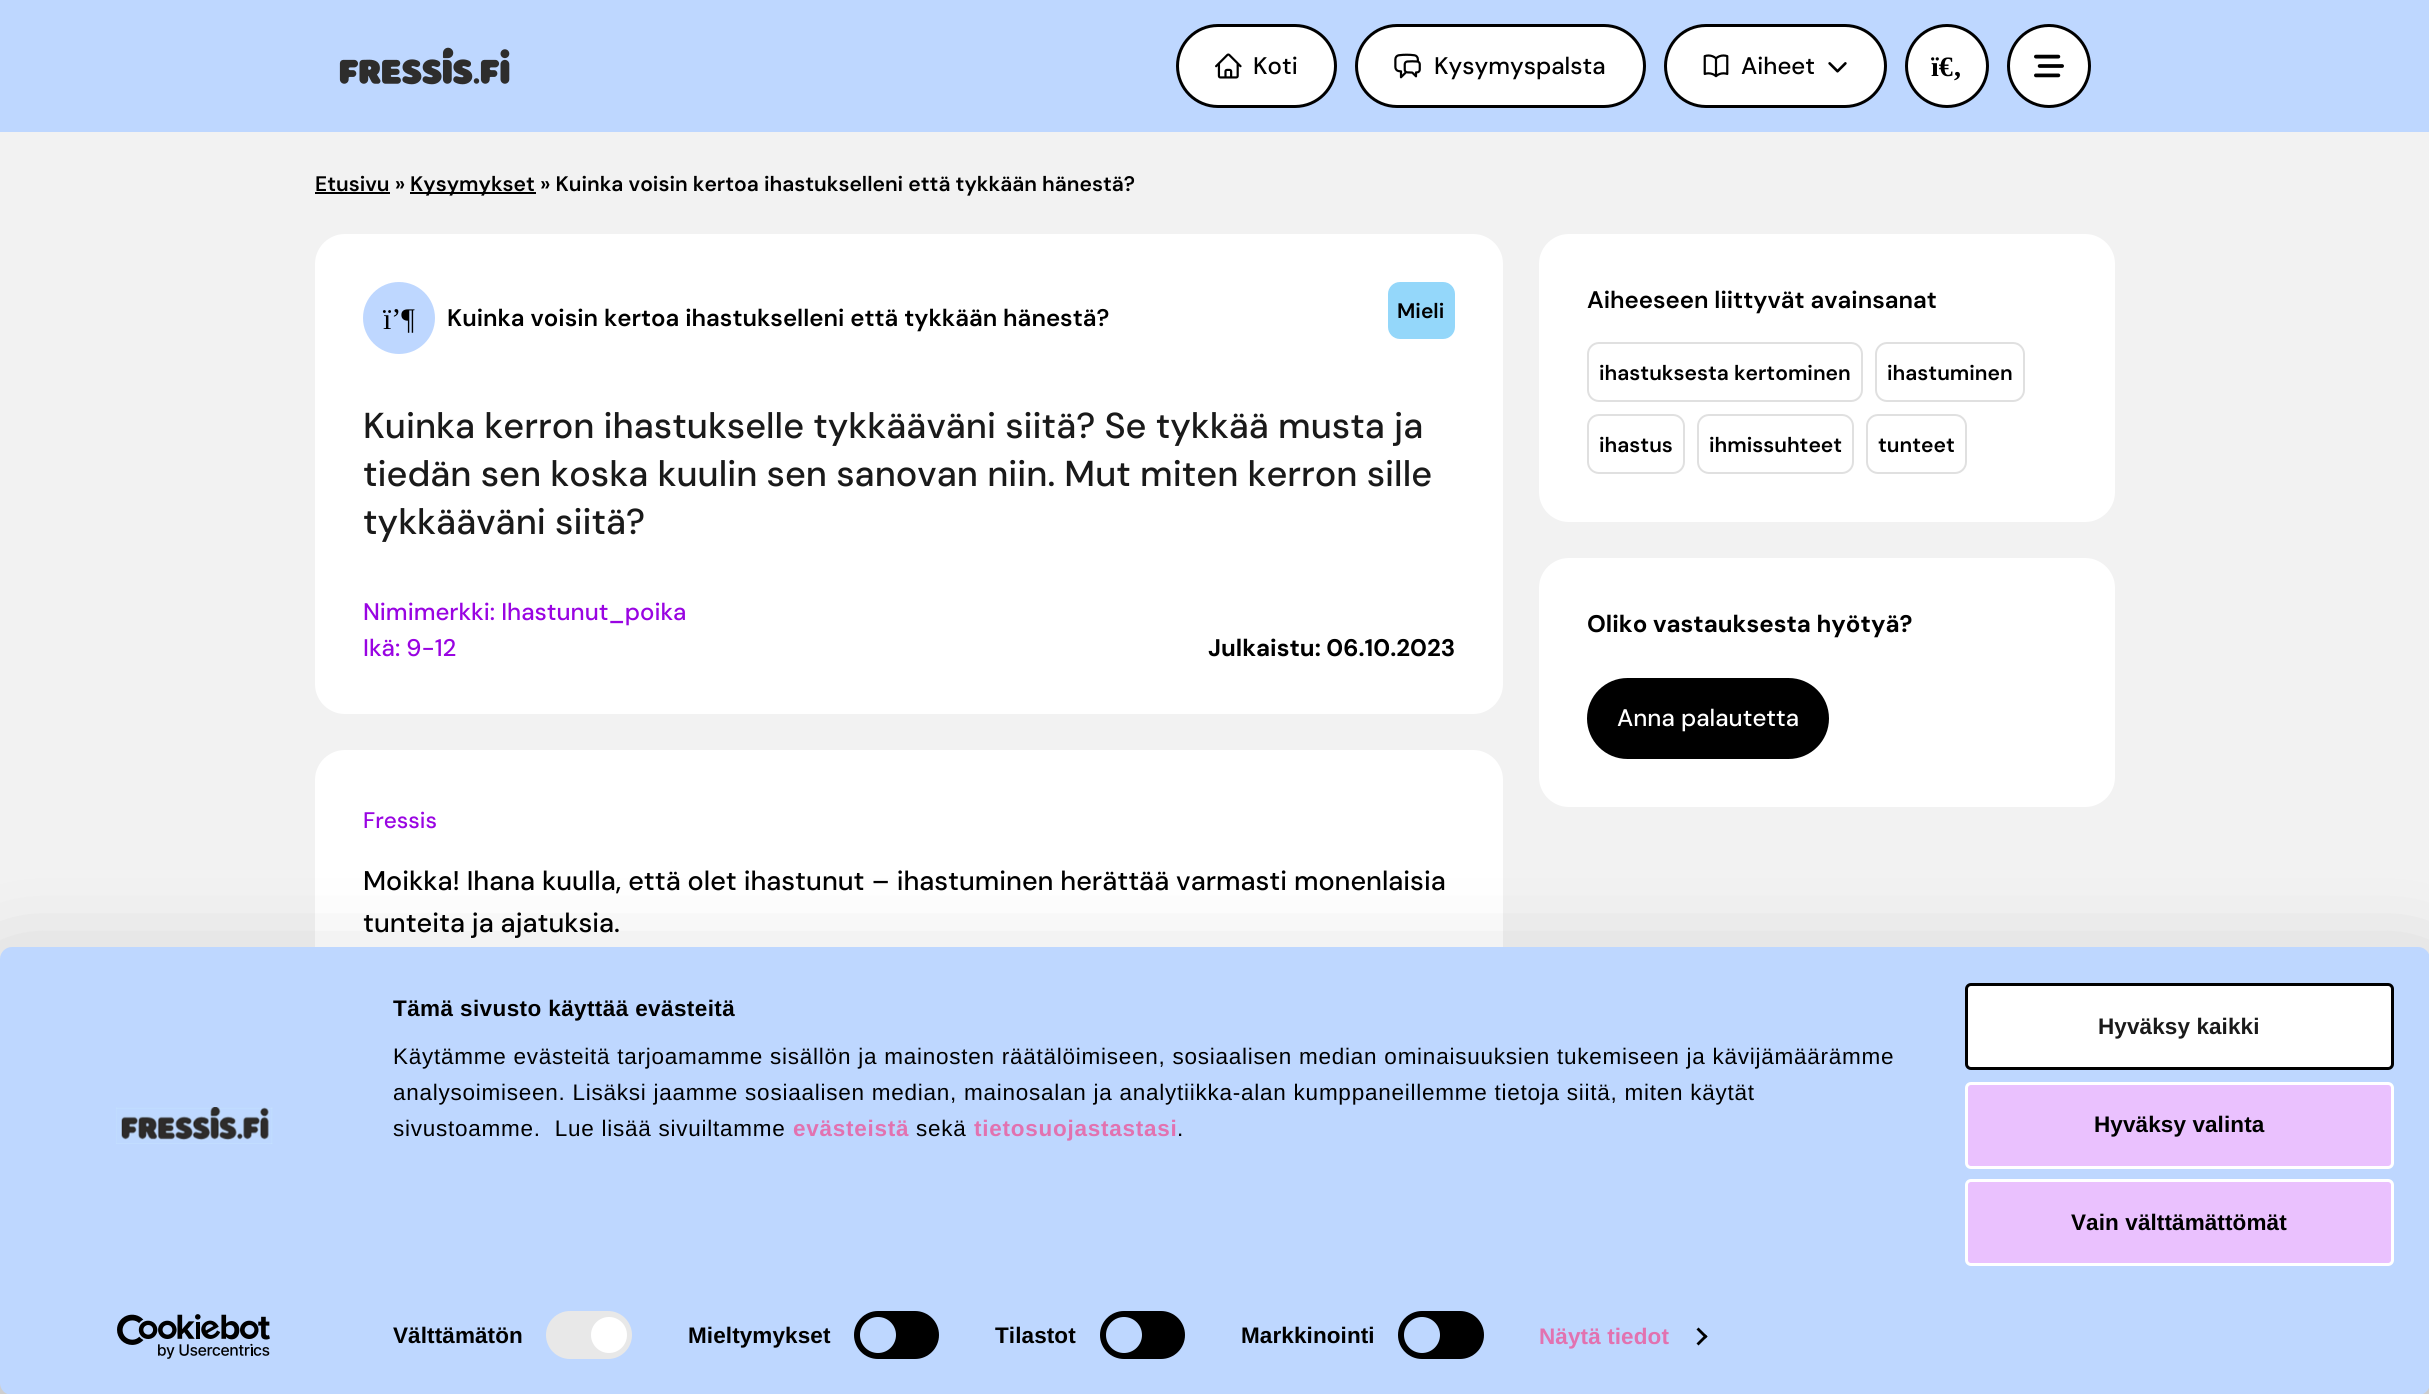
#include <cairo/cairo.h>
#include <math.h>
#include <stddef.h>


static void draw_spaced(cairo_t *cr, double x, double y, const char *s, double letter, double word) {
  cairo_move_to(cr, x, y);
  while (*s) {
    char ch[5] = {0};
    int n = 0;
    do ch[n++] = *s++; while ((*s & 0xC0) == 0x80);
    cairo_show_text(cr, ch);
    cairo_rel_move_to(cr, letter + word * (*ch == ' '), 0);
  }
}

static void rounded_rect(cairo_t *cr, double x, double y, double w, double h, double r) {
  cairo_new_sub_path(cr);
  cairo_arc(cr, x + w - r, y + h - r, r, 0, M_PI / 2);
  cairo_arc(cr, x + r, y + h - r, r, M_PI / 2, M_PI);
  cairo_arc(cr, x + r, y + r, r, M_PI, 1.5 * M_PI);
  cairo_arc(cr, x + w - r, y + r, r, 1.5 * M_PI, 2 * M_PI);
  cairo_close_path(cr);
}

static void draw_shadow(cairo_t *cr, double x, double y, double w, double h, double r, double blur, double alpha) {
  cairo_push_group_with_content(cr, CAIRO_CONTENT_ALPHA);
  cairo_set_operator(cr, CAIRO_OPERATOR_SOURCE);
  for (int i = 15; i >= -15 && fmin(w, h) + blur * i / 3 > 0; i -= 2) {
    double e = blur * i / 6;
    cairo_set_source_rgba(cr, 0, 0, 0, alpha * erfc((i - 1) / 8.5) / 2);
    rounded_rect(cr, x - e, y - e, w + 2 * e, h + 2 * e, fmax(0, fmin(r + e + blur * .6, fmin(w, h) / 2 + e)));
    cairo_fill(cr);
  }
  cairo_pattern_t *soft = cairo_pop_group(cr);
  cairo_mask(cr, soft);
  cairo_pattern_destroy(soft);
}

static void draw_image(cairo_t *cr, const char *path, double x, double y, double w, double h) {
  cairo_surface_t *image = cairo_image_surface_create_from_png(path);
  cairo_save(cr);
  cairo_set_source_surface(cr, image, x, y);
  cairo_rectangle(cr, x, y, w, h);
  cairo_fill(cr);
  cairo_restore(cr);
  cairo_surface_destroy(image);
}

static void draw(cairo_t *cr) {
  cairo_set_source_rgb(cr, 242 / 255.0, 242 / 255.0, 242 / 255.0);
  cairo_paint(cr);
  cairo_set_source_rgb(cr, 190 / 255.0, 215 / 255.0, 1);
  cairo_rectangle(cr, 0, 0, 2429, 132);
  cairo_fill(cr);
  draw_image(cr, "images/1.png", 339, 47, 171, 38);
  cairo_set_source_rgb(cr, 1, 1, 1);
  rounded_rect(cr, 1177.5, 25.5, 158, 81, 40.5);
  cairo_fill_preserve(cr);
  cairo_set_source_rgb(cr, 0, 0, 0);
  cairo_set_line_width(cr, 3);
  cairo_stroke(cr);
  draw_image(cr, "images/2.png", 1215, 53, 27, 26);
  cairo_set_source_rgb(cr, 1, 1, 1);
  rounded_rect(cr, 1356.5, 25.5, 288, 81, 40.5);
  cairo_fill_preserve(cr);
  cairo_set_source_rgb(cr, 0, 0, 0);
  cairo_stroke(cr);
  draw_image(cr, "images/3.png", 1394, 53, 27, 26);
  cairo_set_source_rgb(cr, 1, 1, 1);
  rounded_rect(cr, 1665.5, 25.5, 220, 81, 40.5);
  cairo_fill_preserve(cr);
  cairo_set_source_rgb(cr, 0, 0, 0);
  cairo_stroke(cr);
  draw_image(cr, "images/4.png", 1703, 54, 26, 24);
  draw_image(cr, "images/5.png", 1828, 62, 19, 11);
  cairo_set_source_rgb(cr, 1, 1, 1);
  cairo_arc(cr, 1947, 66, 40.5, 0, 2 * M_PI);
  cairo_fill_preserve(cr);
  cairo_set_source_rgb(cr, 0, 0, 0);
  cairo_stroke(cr);
  cairo_set_source_rgb(cr, 1, 1, 1);
  cairo_arc(cr, 2049, 66, 40.5, 0, 2 * M_PI);
  cairo_fill_preserve(cr);
  cairo_set_source_rgb(cr, 0, 0, 0);
  cairo_stroke(cr);
  draw_image(cr, "images/6.png", 2034, 54, 30, 24);
  cairo_rectangle(cr, 315, 192, 75, 2);
  cairo_fill(cr);
  cairo_rectangle(cr, 410, 192, 126, 2);
  cairo_fill(cr);
  cairo_set_source_rgb(cr, 1, 1, 1);
  rounded_rect(cr, 315, 234, 1188, 480, 30);
  cairo_fill(cr);
  cairo_set_source_rgb(cr, 190 / 255.0, 215 / 255.0, 1);
  cairo_arc(cr, 399, 318, 36, 0, 2 * M_PI);
  cairo_fill(cr);
  cairo_set_source_rgb(cr, 148 / 255.0, 215 / 255.0, 250 / 255.0);
  rounded_rect(cr, 1388, 282, 67, 57, 12);
  cairo_fill(cr);
  cairo_set_source_rgb(cr, 1, 1, 1);
  rounded_rect(cr, 315, 750, 1188, 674, 30);
  cairo_fill(cr);
  rounded_rect(cr, 1539, 234, 576, 288, 30);
  cairo_fill(cr);
  rounded_rect(cr, 1588, 343, 274, 58, 11);
  cairo_set_source_rgb(cr, 224 / 255.0, 224 / 255.0, 224 / 255.0);
  cairo_set_line_width(cr, 2);
  cairo_stroke(cr);
  rounded_rect(cr, 1876, 343, 148, 58, 11);
  cairo_stroke(cr);
  rounded_rect(cr, 1588, 415, 96, 58, 11);
  cairo_stroke(cr);
  rounded_rect(cr, 1698, 415, 155, 58, 11);
  cairo_stroke(cr);
  rounded_rect(cr, 1867, 415, 99, 58, 11);
  cairo_stroke(cr);
  cairo_set_source_rgb(cr, 1, 1, 1);
  rounded_rect(cr, 1539, 558, 576, 249, 30);
  cairo_fill(cr);
  cairo_set_source_rgb(cr, 0, 0, 0);
  rounded_rect(cr, 1587, 678, 242, 81, 40.5);
  cairo_fill(cr);
  cairo_set_source_rgb(cr, 0, 0, 0);
  draw_shadow(cr, 0, 992, 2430, 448, 12, 52.5, 0.3);
  cairo_set_source_rgb(cr, 190 / 255.0, 215 / 255.0, 1);
  rounded_rect(cr, 0, 947, 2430, 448, 12);
  cairo_fill(cr);
  draw_image(cr, "images/7.png", 116, 1107, 157, 37);
  draw_image(cr, "images/8.png", 117, 1314, 153, 45);
  cairo_set_source_rgb(cr, 232 / 255.0, 232 / 255.0, 232 / 255.0);
  rounded_rect(cr, 546, 1311, 86, 48, 24);
  cairo_fill(cr);
  cairo_set_source_rgb(cr, 1, 1, 1);
  cairo_arc(cr, 609, 1335, 18, 0, 2 * M_PI);
  cairo_fill(cr);
  cairo_set_source_rgb(cr, 0, 0, 0);
  rounded_rect(cr, 854, 1311, 85, 48, 24);
  cairo_fill(cr);
  cairo_set_source_rgb(cr, 190 / 255.0, 215 / 255.0, 1);
  cairo_arc(cr, 878, 1335, 18, 0, 2 * M_PI);
  cairo_fill(cr);
  cairo_set_source_rgb(cr, 0, 0, 0);
  rounded_rect(cr, 1100, 1311, 85, 48, 24);
  cairo_fill(cr);
  cairo_set_source_rgb(cr, 190 / 255.0, 215 / 255.0, 1);
  cairo_arc(cr, 1124, 1335, 18, 0, 2 * M_PI);
  cairo_fill(cr);
  cairo_set_source_rgb(cr, 0, 0, 0);
  rounded_rect(cr, 1398, 1311, 86, 48, 24);
  cairo_fill(cr);
  cairo_set_source_rgb(cr, 190 / 255.0, 215 / 255.0, 1);
  cairo_arc(cr, 1422, 1335, 18, 0, 2 * M_PI);
  cairo_fill(cr);
  cairo_set_source_rgb(cr, 0, 0, 0);
  cairo_new_path(cr);
  cairo_move_to(cr, 1698.5, 1327.5);
  cairo_line_to(cr, 1707.5, 1336.5);
  cairo_line_to(cr, 1705.5, 1338.5);
  cairo_line_to(cr, 1696.5, 1329.5);
  cairo_close_path(cr);
  cairo_fill(cr);
  cairo_new_path(cr);
  cairo_move_to(cr, 1705.5, 1334.5);
  cairo_line_to(cr, 1707.5, 1336.5);
  cairo_line_to(cr, 1698.5, 1345.5);
  cairo_line_to(cr, 1696.5, 1343.5);
  cairo_close_path(cr);
  cairo_fill(cr);
  cairo_set_source_rgb(cr, 1, 1, 1);
  rounded_rect(cr, 1966.5, 984.5, 426, 84, 4.5);
  cairo_fill_preserve(cr);
  cairo_set_source_rgb(cr, 0, 0, 0);
  cairo_set_line_width(cr, 3);
  cairo_stroke(cr);
  cairo_set_source_rgb(cr, 234 / 255.0, 193 / 255.0, 254 / 255.0);
  rounded_rect(cr, 1966.5, 1083.5, 426, 84, 4.5);
  cairo_fill_preserve(cr);
  cairo_set_source_rgb(cr, 1, 1, 1);
  cairo_stroke(cr);
  cairo_set_source_rgb(cr, 234 / 255.0, 193 / 255.0, 254 / 255.0);
  rounded_rect(cr, 1966.5, 1180.5, 426, 84, 4.5);
  cairo_fill_preserve(cr);
  cairo_set_source_rgb(cr, 1, 1, 1);
  cairo_stroke(cr);
  cairo_select_font_face(cr, "DM Sans Medium", CAIRO_FONT_SLANT_NORMAL, CAIRO_FONT_WEIGHT_NORMAL);
  cairo_set_font_size(cr, 24);
  cairo_set_source_rgb(cr, 0, 0, 0);
  cairo_move_to(cr, 1253, 74);
  cairo_show_text(cr, "Koti");
  cairo_move_to(cr, 1434, 74);
  cairo_show_text(cr, "Kysymyspalsta");
  cairo_move_to(cr, 1741, 74);
  cairo_show_text(cr, "Aiheet");
  cairo_select_font_face(cr, "Liberation Serif", CAIRO_FONT_SLANT_NORMAL, CAIRO_FONT_WEIGHT_BOLD);
  cairo_set_font_size(cr, 28);
  cairo_move_to(cr, 1931, 76);
  cairo_show_text(cr, "ï€‚");
  cairo_select_font_face(cr, "DM Sans SemiBold", CAIRO_FONT_SLANT_NORMAL, CAIRO_FONT_WEIGHT_NORMAL);
  cairo_set_font_size(cr, 21);
  cairo_move_to(cr, 315, 191);
  cairo_show_text(cr, "Etusivu »");
  cairo_move_to(cr, 410, 191);
  cairo_show_text(cr, "Kysymykset » Kuinka voisin kertoa ihastukselleni että tykkään hänestä?");
  cairo_select_font_face(cr, "Liberation Serif", CAIRO_FONT_SLANT_NORMAL, CAIRO_FONT_WEIGHT_NORMAL);
  cairo_set_font_size(cr, 30);
  cairo_move_to(cr, 383, 329);
  cairo_show_text(cr, "ï’¶");
  cairo_select_font_face(cr, "DM Sans SemiBold", CAIRO_FONT_SLANT_NORMAL, CAIRO_FONT_WEIGHT_NORMAL);
  cairo_set_font_size(cr, 24);
  cairo_move_to(cr, 447, 326);
  cairo_show_text(cr, "Kuinka voisin kertoa ihastukselleni että tykkään hänestä?");
  cairo_set_font_size(cr, 21);
  cairo_move_to(cr, 1397, 318);
  cairo_show_text(cr, "Mieli");
  cairo_select_font_face(cr, "DM Sans Medium", CAIRO_FONT_SLANT_NORMAL, CAIRO_FONT_WEIGHT_NORMAL);
  cairo_set_font_size(cr, 36);
  cairo_set_source_rgb(cr, 26 / 255.0, 26 / 255.0, 26 / 255.0);
  cairo_move_to(cr, 363, 438);
  cairo_show_text(cr, "Kuinka kerron ihastukselle tykkääväni siitä? Se tykkää musta ja");
  cairo_move_to(cr, 363, 486);
  cairo_show_text(cr, "tiedän sen koska kuulin sen sanovan niin. Mut miten kerron sille");
  cairo_move_to(cr, 363, 534);
  cairo_show_text(cr, "tykkääväni siitä?");
  cairo_set_font_size(cr, 24);
  cairo_set_source_rgb(cr, 153 / 255.0, 4 / 255.0, 226 / 255.0);
  cairo_move_to(cr, 363, 620);
  cairo_show_text(cr, "Nimimerkki: Ihastunut_poika");
  cairo_move_to(cr, 363, 656);
  cairo_show_text(cr, "Ikä: 9-12");
  cairo_select_font_face(cr, "DM Sans", CAIRO_FONT_SLANT_NORMAL, CAIRO_FONT_WEIGHT_BOLD);
  cairo_set_source_rgb(cr, 0, 0, 0);
  cairo_move_to(cr, 1208, 656);
  cairo_show_text(cr, "Julkaistu: 06.10.2023");
  cairo_select_font_face(cr, "DM Sans Medium", CAIRO_FONT_SLANT_NORMAL, CAIRO_FONT_WEIGHT_NORMAL);
  cairo_set_font_size(cr, 22.5);
  cairo_set_source_rgb(cr, 153 / 255.0, 4 / 255.0, 226 / 255.0);
  cairo_move_to(cr, 363, 828);
  cairo_show_text(cr, "Fressis");
  cairo_set_font_size(cr, 27);
  cairo_set_source_rgb(cr, 0, 0, 0);
  cairo_move_to(cr, 363, 890);
  cairo_show_text(cr, "Moikka! Ihana kuulla, että olet ihastunut – ihastuminen herättää varmasti monenlaisia");
  cairo_move_to(cr, 363, 932);
  cairo_show_text(cr, "tunteita ja ajatuksia.");
  cairo_select_font_face(cr, "DM Sans SemiBold", CAIRO_FONT_SLANT_NORMAL, CAIRO_FONT_WEIGHT_NORMAL);
  cairo_set_font_size(cr, 24);
  cairo_move_to(cr, 1587, 308);
  cairo_show_text(cr, "Aiheeseen liittyvät avainsanat");
  cairo_set_font_size(cr, 21);
  cairo_move_to(cr, 1599, 380);
  cairo_show_text(cr, "ihastuksesta kertominen");
  cairo_move_to(cr, 1887, 380);
  cairo_show_text(cr, "ihastuminen");
  cairo_move_to(cr, 1599, 452);
  cairo_show_text(cr, "ihastus");
  cairo_move_to(cr, 1709, 452);
  cairo_show_text(cr, "ihmissuhteet");
  cairo_move_to(cr, 1878, 452);
  cairo_show_text(cr, "tunteet");
  cairo_select_font_face(cr, "DM Sans", CAIRO_FONT_SLANT_NORMAL, CAIRO_FONT_WEIGHT_BOLD);
  cairo_set_font_size(cr, 24);
  cairo_move_to(cr, 1587, 632);
  cairo_show_text(cr, "Oliko vastauksesta hyötyä?");
  cairo_select_font_face(cr, "DM Sans Medium", CAIRO_FONT_SLANT_NORMAL, CAIRO_FONT_WEIGHT_NORMAL);
  cairo_set_source_rgb(cr, 1, 1, 1);
  cairo_move_to(cr, 1617, 726);
  cairo_show_text(cr, "Anna palautetta");
  cairo_select_font_face(cr, "Liberation Sans", CAIRO_FONT_SLANT_NORMAL, CAIRO_FONT_WEIGHT_BOLD);
  cairo_set_font_size(cr, 22.5);
  cairo_set_source_rgb(cr, 0, 0, 0);
  draw_spaced(cr, 393, 1016, "Tämä sivusto käyttää evästeitä", 0.4, 0);
  cairo_select_font_face(cr, "Liberation Sans", CAIRO_FONT_SLANT_NORMAL, CAIRO_FONT_WEIGHT_NORMAL);
  draw_spaced(cr, 393, 1064, "Käytämme evästeitä tarjoamamme sisällön ja mainosten räätälöimiseen, sosiaalisen median ominaisuuksien tukemiseen ja kävijämäärämme", 0.75, 0);
  draw_spaced(cr, 393, 1100, "analysoimiseen. Lisäksi jaamme sosiaalisen median, mainosalan ja analytiikka-alan kumppaneillemme tietoja siitä, miten käytät", 0.75, 0);
  draw_spaced(cr, 393, 1136, "sivustoamme.  Lue lisää sivuiltamme", 0.75, 0);
  cairo_select_font_face(cr, "Liberation Sans", CAIRO_FONT_SLANT_NORMAL, CAIRO_FONT_WEIGHT_BOLD);
  cairo_set_source_rgb(cr, 226 / 255.0, 114 / 255.0, 176 / 255.0);
  draw_spaced(cr, 793, 1136, "evästeistä", 0.75, 0);
  cairo_select_font_face(cr, "Liberation Sans", CAIRO_FONT_SLANT_NORMAL, CAIRO_FONT_WEIGHT_NORMAL);
  cairo_set_source_rgb(cr, 0, 0, 0);
  draw_spaced(cr, 916, 1136, "sekä", 0.75, 0);
  cairo_select_font_face(cr, "Liberation Sans", CAIRO_FONT_SLANT_NORMAL, CAIRO_FONT_WEIGHT_BOLD);
  cairo_set_source_rgb(cr, 226 / 255.0, 114 / 255.0, 176 / 255.0);
  draw_spaced(cr, 974, 1136, "tietosuojastastasi", 0.75, 0);
  cairo_select_font_face(cr, "Liberation Sans", CAIRO_FONT_SLANT_NORMAL, CAIRO_FONT_WEIGHT_NORMAL);
  cairo_set_source_rgb(cr, 0, 0, 0);
  draw_spaced(cr, 1177, 1136, ".", 0.75, 0);
  cairo_select_font_face(cr, "Liberation Sans", CAIRO_FONT_SLANT_NORMAL, CAIRO_FONT_WEIGHT_BOLD);
  draw_spaced(cr, 393, 1343, "Välttämätön", 0.1, 0);
  draw_spaced(cr, 688, 1343, "Mieltymykset", 0.1, 0);
  draw_spaced(cr, 995, 1343, "Tilastot", 0.1, 0);
  draw_spaced(cr, 1241, 1343, "Markkinointi", 0.1, 0);
  cairo_set_source_rgb(cr, 226 / 255.0, 114 / 255.0, 176 / 255.0);
  draw_spaced(cr, 1539, 1344, "Näytä tiedot", 0.1, 0);
  cairo_set_source_rgb(cr, 26 / 255.0, 26 / 255.0, 26 / 255.0);
  draw_spaced(cr, 2098, 1034, "Hyväksy kaikki", 0.1, 0);
  cairo_set_source_rgb(cr, 0, 0, 0);
  draw_spaced(cr, 2094, 1132, "Hyväksy valinta", 0.1, 0);
  draw_spaced(cr, 2071, 1230, "Vain välttämättömät", 0.1, 0);
}

int main(void) {
  cairo_surface_t *surface = cairo_image_surface_create(CAIRO_FORMAT_RGB24, 2429, 1394);
  cairo_t *cr = cairo_create(surface);
  cairo_font_options_t *options = cairo_font_options_create();
  cairo_font_options_set_hint_metrics(options, CAIRO_HINT_METRICS_OFF);
  cairo_font_options_set_hint_style(options, CAIRO_HINT_STYLE_NONE);
  cairo_set_font_options(cr, options);
  cairo_set_miter_limit(cr, 4);
  draw(cr);
  cairo_surface_write_to_png(surface, "out.png");
  cairo_font_options_destroy(options);
  cairo_destroy(cr);
  cairo_surface_destroy(surface);
  return 0;
}
